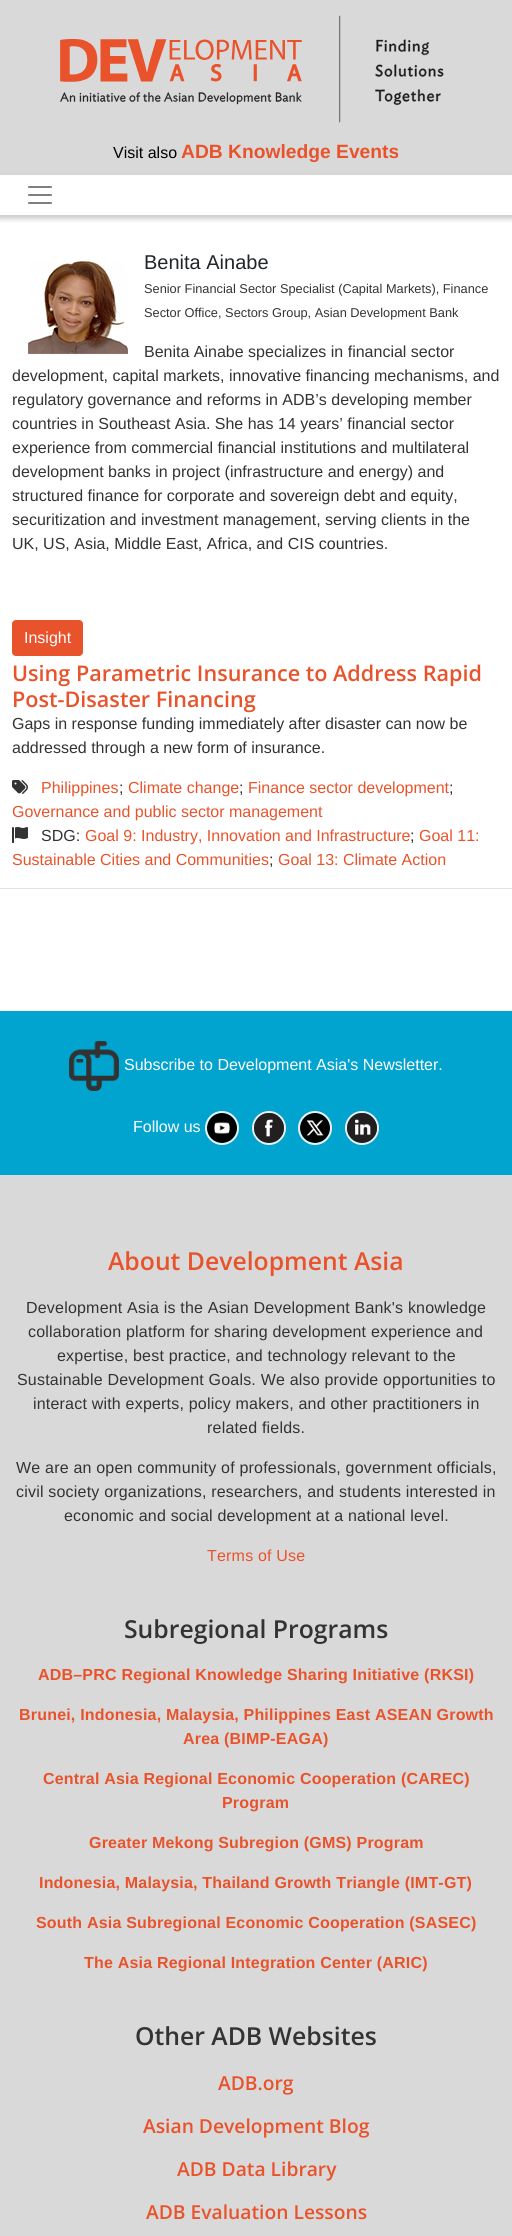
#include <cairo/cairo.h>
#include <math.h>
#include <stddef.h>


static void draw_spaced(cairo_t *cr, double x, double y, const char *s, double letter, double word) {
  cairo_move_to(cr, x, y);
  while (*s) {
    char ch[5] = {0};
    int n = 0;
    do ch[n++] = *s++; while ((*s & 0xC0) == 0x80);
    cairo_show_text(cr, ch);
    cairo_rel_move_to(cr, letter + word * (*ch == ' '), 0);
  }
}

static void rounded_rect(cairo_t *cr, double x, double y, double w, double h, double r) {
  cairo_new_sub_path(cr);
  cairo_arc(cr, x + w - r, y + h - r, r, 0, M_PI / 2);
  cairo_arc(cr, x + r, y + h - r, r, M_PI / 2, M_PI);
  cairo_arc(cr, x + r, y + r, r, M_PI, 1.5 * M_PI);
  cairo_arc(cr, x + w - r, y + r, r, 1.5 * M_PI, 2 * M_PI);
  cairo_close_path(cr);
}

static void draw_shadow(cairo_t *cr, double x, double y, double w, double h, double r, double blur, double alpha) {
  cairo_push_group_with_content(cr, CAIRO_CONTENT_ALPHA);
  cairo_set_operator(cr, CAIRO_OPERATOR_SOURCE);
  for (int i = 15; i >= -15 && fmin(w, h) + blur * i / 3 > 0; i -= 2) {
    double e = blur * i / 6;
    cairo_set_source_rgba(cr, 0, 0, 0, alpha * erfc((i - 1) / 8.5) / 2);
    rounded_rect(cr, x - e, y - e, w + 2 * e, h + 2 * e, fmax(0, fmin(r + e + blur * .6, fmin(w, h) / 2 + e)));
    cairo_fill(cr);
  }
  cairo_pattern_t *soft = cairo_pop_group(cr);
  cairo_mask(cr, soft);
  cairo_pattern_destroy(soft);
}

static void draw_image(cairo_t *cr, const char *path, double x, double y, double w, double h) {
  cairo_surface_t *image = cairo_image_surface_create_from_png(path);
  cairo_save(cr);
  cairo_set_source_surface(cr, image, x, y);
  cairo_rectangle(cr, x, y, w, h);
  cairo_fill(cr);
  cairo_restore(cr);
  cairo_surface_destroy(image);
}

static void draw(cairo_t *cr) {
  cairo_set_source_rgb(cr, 1, 1, 1);
  cairo_paint(cr);
  cairo_set_source_rgb(cr, 217 / 255.0, 217 / 255.0, 217 / 255.0);
  cairo_rectangle(cr, 0, 0, 512, 175);
  cairo_fill(cr);
  draw_image(cr, "images/1.png", 59, 15, 385, 108);
  cairo_save(cr);
  cairo_set_fill_rule(cr, CAIRO_FILL_RULE_EVEN_ODD);
  cairo_new_path(cr);
  cairo_move_to(cr, 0, 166);
  cairo_line_to(cr, 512, 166);
  cairo_line_to(cr, 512, 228);
  cairo_line_to(cr, 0, 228);
  cairo_close_path(cr);
  cairo_move_to(cr, 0, 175);
  cairo_line_to(cr, 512, 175);
  cairo_line_to(cr, 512, 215);
  cairo_line_to(cr, 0, 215);
  cairo_close_path(cr);
  cairo_clip(cr);
  cairo_set_source_rgb(cr, 204 / 255.0, 204 / 255.0, 204 / 255.0);
  draw_shadow(cr, -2, 175, 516, 44, 0, 2.5, 1);
  cairo_restore(cr);
  draw_image(cr, "images/2.png", 28, 186, 24, 18);
  draw_image(cr, "images/3.png", 28, 261, 100, 93);
  cairo_set_source_rgb(cr, 222 / 255.0, 226 / 255.0, 230 / 255.0);
  cairo_rectangle(cr, 0, 888, 512, 1);
  cairo_fill(cr);
  cairo_set_source_rgb(cr, 233 / 255.0, 83 / 255.0, 43 / 255.0);
  rounded_rect(cr, 12, 620, 71, 36, 4);
  cairo_fill(cr);
  draw_image(cr, "images/4.png", 12, 780, 16, 14);
  draw_image(cr, "images/5.png", 12, 827, 16, 16);
  cairo_set_source_rgb(cr, 1 / 255.0, 164 / 255.0, 207 / 255.0);
  cairo_rectangle(cr, 0, 1011, 512, 164);
  cairo_fill(cr);
  draw_image(cr, "images/6.png", 69, 1041, 50, 50);
  cairo_arc(cr, 222, 1128, 16, 0, 2 * M_PI);
  cairo_set_source_rgb(cr, 238 / 255.0, 238 / 255.0, 238 / 255.0);
  cairo_stroke(cr);
  draw_image(cr, "images/7.png", 207, 1113, 30, 30);
  cairo_arc(cr, 269, 1128, 16, 0, 2 * M_PI);
  cairo_stroke(cr);
  draw_image(cr, "images/8.png", 254, 1113, 30, 30);
  cairo_arc(cr, 315, 1128, 16, 0, 2 * M_PI);
  cairo_stroke(cr);
  draw_image(cr, "images/9.png", 300, 1113, 30, 30);
  cairo_arc(cr, 362, 1128, 16, 0, 2 * M_PI);
  cairo_stroke(cr);
  draw_image(cr, "images/10.png", 347, 1113, 30, 30);
  cairo_set_source_rgb(cr, 217 / 255.0, 217 / 255.0, 217 / 255.0);
  cairo_rectangle(cr, 0, 1175, 512, 1061);
  cairo_fill(cr);
  cairo_select_font_face(cr, "Liberation Sans", CAIRO_FONT_SLANT_NORMAL, CAIRO_FONT_WEIGHT_NORMAL);
  cairo_set_font_size(cr, 16);
  cairo_set_source_rgb(cr, 0, 0, 0);
  cairo_move_to(cr, 113, 158);
  cairo_show_text(cr, "Visit also");
  cairo_select_font_face(cr, "Liberation Sans", CAIRO_FONT_SLANT_NORMAL, CAIRO_FONT_WEIGHT_BOLD);
  cairo_set_font_size(cr, 19.25);
  cairo_set_source_rgb(cr, 233 / 255.0, 83 / 255.0, 43 / 255.0);
  cairo_move_to(cr, 181, 158);
  cairo_show_text(cr, "ADB Knowledge Events");
  cairo_select_font_face(cr, "Liberation Sans", CAIRO_FONT_SLANT_NORMAL, CAIRO_FONT_WEIGHT_NORMAL);
  cairo_set_font_size(cr, 20);
  cairo_set_source_rgb(cr, 33 / 255.0, 37 / 255.0, 41 / 255.0);
  cairo_move_to(cr, 144, 269);
  cairo_show_text(cr, "Benita Ainabe");
  cairo_set_font_size(cr, 12.8);
  cairo_set_source_rgb(cr, 51 / 255.0, 51 / 255.0, 51 / 255.0);
  cairo_move_to(cr, 144, 293);
  cairo_show_text(cr, "Senior Financial Sector Specialist (Capital Markets), Finance");
  cairo_move_to(cr, 144, 317);
  cairo_show_text(cr, "Sector Office, Sectors Group, Asian Development Bank");
  cairo_set_font_size(cr, 16);
  cairo_move_to(cr, 144, 357);
  cairo_show_text(cr, "Benita Ainabe specializes in financial sector");
  cairo_move_to(cr, 12, 381);
  cairo_show_text(cr, "development, capital markets, innovative financing mechanisms, and");
  cairo_move_to(cr, 12, 405);
  cairo_show_text(cr, "regulatory governance and reforms in ADB’s developing member");
  cairo_move_to(cr, 12, 429);
  cairo_show_text(cr, "countries in Southeast Asia. She has 14 years’ financial sector");
  cairo_move_to(cr, 12, 453);
  cairo_show_text(cr, "experience from commercial financial institutions and multilateral");
  cairo_move_to(cr, 12, 477);
  cairo_show_text(cr, "development banks in project (infrastructure and energy) and");
  cairo_move_to(cr, 12, 501);
  cairo_show_text(cr, "structured finance for corporate and sovereign debt and equity,");
  cairo_move_to(cr, 12, 525);
  cairo_show_text(cr, "securitization and investment management, serving clients in the");
  cairo_move_to(cr, 12, 549);
  cairo_show_text(cr, "UK, US, Asia, Middle East, Africa, and CIS countries.");
  cairo_set_source_rgb(cr, 1, 1, 1);
  cairo_move_to(cr, 24, 643);
  cairo_show_text(cr, "Insight");
  cairo_select_font_face(cr, "Open Sans SemiBold", CAIRO_FONT_SLANT_NORMAL, CAIRO_FONT_WEIGHT_NORMAL);
  cairo_set_font_size(cr, 21.6);
  cairo_set_source_rgb(cr, 233 / 255.0, 83 / 255.0, 43 / 255.0);
  cairo_move_to(cr, 12, 681);
  cairo_show_text(cr, "Using Parametric Insurance to Address Rapid");
  cairo_move_to(cr, 12, 707);
  cairo_show_text(cr, "Post-Disaster Financing");
  cairo_select_font_face(cr, "Liberation Sans", CAIRO_FONT_SLANT_NORMAL, CAIRO_FONT_WEIGHT_NORMAL);
  cairo_set_font_size(cr, 16);
  cairo_set_source_rgb(cr, 51 / 255.0, 51 / 255.0, 51 / 255.0);
  cairo_move_to(cr, 12, 729);
  cairo_show_text(cr, "Gaps in response funding immediately after disaster can now be");
  cairo_move_to(cr, 12, 753);
  cairo_show_text(cr, "addressed through a new form of insurance.");
  cairo_set_source_rgb(cr, 233 / 255.0, 83 / 255.0, 43 / 255.0);
  cairo_move_to(cr, 41, 793);
  cairo_show_text(cr, "Philippines");
  cairo_set_source_rgb(cr, 51 / 255.0, 51 / 255.0, 51 / 255.0);
  cairo_move_to(cr, 119, 793);
  cairo_show_text(cr, ";");
  cairo_set_source_rgb(cr, 233 / 255.0, 83 / 255.0, 43 / 255.0);
  cairo_move_to(cr, 128, 793);
  cairo_show_text(cr, "Climate change");
  cairo_set_source_rgb(cr, 51 / 255.0, 51 / 255.0, 51 / 255.0);
  cairo_move_to(cr, 239, 793);
  cairo_show_text(cr, ";");
  cairo_set_source_rgb(cr, 233 / 255.0, 83 / 255.0, 43 / 255.0);
  cairo_move_to(cr, 248, 793);
  cairo_show_text(cr, "Finance sector development");
  cairo_set_source_rgb(cr, 51 / 255.0, 51 / 255.0, 51 / 255.0);
  cairo_move_to(cr, 449, 793);
  cairo_show_text(cr, ";");
  cairo_set_source_rgb(cr, 233 / 255.0, 83 / 255.0, 43 / 255.0);
  cairo_move_to(cr, 12, 817);
  cairo_show_text(cr, "Governance and public sector management");
  cairo_set_source_rgb(cr, 51 / 255.0, 51 / 255.0, 51 / 255.0);
  cairo_move_to(cr, 41, 841);
  cairo_show_text(cr, "SDG:");
  cairo_set_source_rgb(cr, 233 / 255.0, 83 / 255.0, 43 / 255.0);
  cairo_move_to(cr, 85, 841);
  cairo_show_text(cr, "Goal 9: Industry, Innovation and Infrastructure");
  cairo_set_source_rgb(cr, 51 / 255.0, 51 / 255.0, 51 / 255.0);
  cairo_move_to(cr, 410, 841);
  cairo_show_text(cr, ";");
  cairo_set_source_rgb(cr, 233 / 255.0, 83 / 255.0, 43 / 255.0);
  cairo_move_to(cr, 419, 841);
  cairo_show_text(cr, "Goal 11:");
  cairo_move_to(cr, 12, 865);
  cairo_show_text(cr, "Sustainable Cities and Communities");
  cairo_set_source_rgb(cr, 51 / 255.0, 51 / 255.0, 51 / 255.0);
  cairo_move_to(cr, 269, 865);
  cairo_show_text(cr, ";");
  cairo_set_source_rgb(cr, 233 / 255.0, 83 / 255.0, 43 / 255.0);
  cairo_move_to(cr, 278, 865);
  cairo_show_text(cr, "Goal 13: Climate Action");
  cairo_set_source_rgb(cr, 1, 1, 1);
  cairo_move_to(cr, 124, 1070);
  cairo_show_text(cr, "Subscribe to Development Asia's Newsletter.");
  cairo_move_to(cr, 133, 1132);
  cairo_show_text(cr, "Follow us");
  cairo_select_font_face(cr, "Open Sans SemiBold", CAIRO_FONT_SLANT_NORMAL, CAIRO_FONT_WEIGHT_NORMAL);
  cairo_set_font_size(cr, 24.75);
  cairo_set_source_rgb(cr, 233 / 255.0, 83 / 255.0, 43 / 255.0);
  cairo_move_to(cr, 108, 1270);
  cairo_show_text(cr, "About Development Asia");
  cairo_select_font_face(cr, "Liberation Sans", CAIRO_FONT_SLANT_NORMAL, CAIRO_FONT_WEIGHT_NORMAL);
  cairo_set_font_size(cr, 16);
  cairo_set_source_rgb(cr, 51 / 255.0, 51 / 255.0, 51 / 255.0);
  draw_spaced(cr, 26, 1313, "Development Asia is the Asian Development Bank's knowledge", 0.2, 0);
  draw_spaced(cr, 28, 1337, "collaboration platform for sharing development experience and", 0.2, 0);
  draw_spaced(cr, 57, 1361, "expertise, best practice, and technology relevant to the", 0.2, 0);
  draw_spaced(cr, 17, 1385, "Sustainable Development Goals. We also provide opportunities to", 0.2, 0);
  draw_spaced(cr, 33, 1409, "interact with experts, policy makers, and other practitioners in", 0.2, 0);
  draw_spaced(cr, 207, 1433, "related fields.", 0.2, 0);
  draw_spaced(cr, 16, 1473, "We are an open community of professionals, government officials,", 0.2, 0);
  draw_spaced(cr, 16, 1497, "civil society organizations, researchers, and students interested in", 0.2, 0);
  draw_spaced(cr, 64, 1521, "economic and social development at a national level.", 0.2, 0);
  cairo_set_source_rgb(cr, 233 / 255.0, 83 / 255.0, 43 / 255.0);
  draw_spaced(cr, 207, 1561, "Terms of Use", 0.2, 0);
  cairo_select_font_face(cr, "Open Sans SemiBold", CAIRO_FONT_SLANT_NORMAL, CAIRO_FONT_WEIGHT_NORMAL);
  cairo_set_font_size(cr, 24.75);
  cairo_set_source_rgb(cr, 51 / 255.0, 51 / 255.0, 51 / 255.0);
  cairo_move_to(cr, 124, 1638);
  cairo_show_text(cr, "Subregional Programs");
  cairo_select_font_face(cr, "Liberation Sans", CAIRO_FONT_SLANT_NORMAL, CAIRO_FONT_WEIGHT_BOLD);
  cairo_set_font_size(cr, 16);
  cairo_set_source_rgb(cr, 233 / 255.0, 83 / 255.0, 43 / 255.0);
  draw_spaced(cr, 38, 1680, "ADB–PRC Regional Knowledge Sharing Initiative (RKSI)", 0.2, 0);
  draw_spaced(cr, 19, 1720, "Brunei, Indonesia, Malaysia, Philippines East ASEAN Growth", 0.2, 0);
  draw_spaced(cr, 183, 1744, "Area (BIMP-EAGA)", 0.2, 0);
  draw_spaced(cr, 43, 1784, "Central Asia Regional Economic Cooperation (CAREC)", 0.2, 0);
  draw_spaced(cr, 222, 1808, "Program", 0.2, 0);
  draw_spaced(cr, 89, 1848, "Greater Mekong Subregion (GMS) Program", 0.2, 0);
  draw_spaced(cr, 39, 1888, "Indonesia, Malaysia, Thailand Growth Triangle (IMT-GT)", 0.2, 0);
  draw_spaced(cr, 36, 1928, "South Asia Subregional Economic Cooperation (SASEC)", 0.2, 0);
  draw_spaced(cr, 84, 1968, "The Asia Regional Integration Center (ARIC)", 0.2, 0);
  cairo_select_font_face(cr, "Open Sans SemiBold", CAIRO_FONT_SLANT_NORMAL, CAIRO_FONT_WEIGHT_NORMAL);
  cairo_set_font_size(cr, 24.75);
  cairo_set_source_rgb(cr, 51 / 255.0, 51 / 255.0, 51 / 255.0);
  cairo_move_to(cr, 135, 2045);
  cairo_show_text(cr, "Other ADB Websites");
  cairo_set_font_size(cr, 19.25);
  cairo_set_source_rgb(cr, 233 / 255.0, 83 / 255.0, 43 / 255.0);
  cairo_move_to(cr, 218, 2090);
  cairo_show_text(cr, "ADB.org");
  cairo_move_to(cr, 143, 2133);
  cairo_show_text(cr, "Asian Development Blog");
  cairo_move_to(cr, 177, 2176);
  cairo_show_text(cr, "ADB Data Library");
  cairo_move_to(cr, 146, 2219);
  cairo_show_text(cr, "ADB Evaluation Lessons");
}

int main(void) {
  cairo_surface_t *surface = cairo_image_surface_create(CAIRO_FORMAT_RGB24, 512, 2236);
  cairo_t *cr = cairo_create(surface);
  cairo_font_options_t *options = cairo_font_options_create();
  cairo_font_options_set_hint_metrics(options, CAIRO_HINT_METRICS_OFF);
  cairo_font_options_set_hint_style(options, CAIRO_HINT_STYLE_NONE);
  cairo_set_font_options(cr, options);
  cairo_set_miter_limit(cr, 4);
  draw(cr);
  cairo_surface_write_to_png(surface, "out.png");
  cairo_font_options_destroy(options);
  cairo_destroy(cr);
  cairo_surface_destroy(surface);
  return 0;
}
